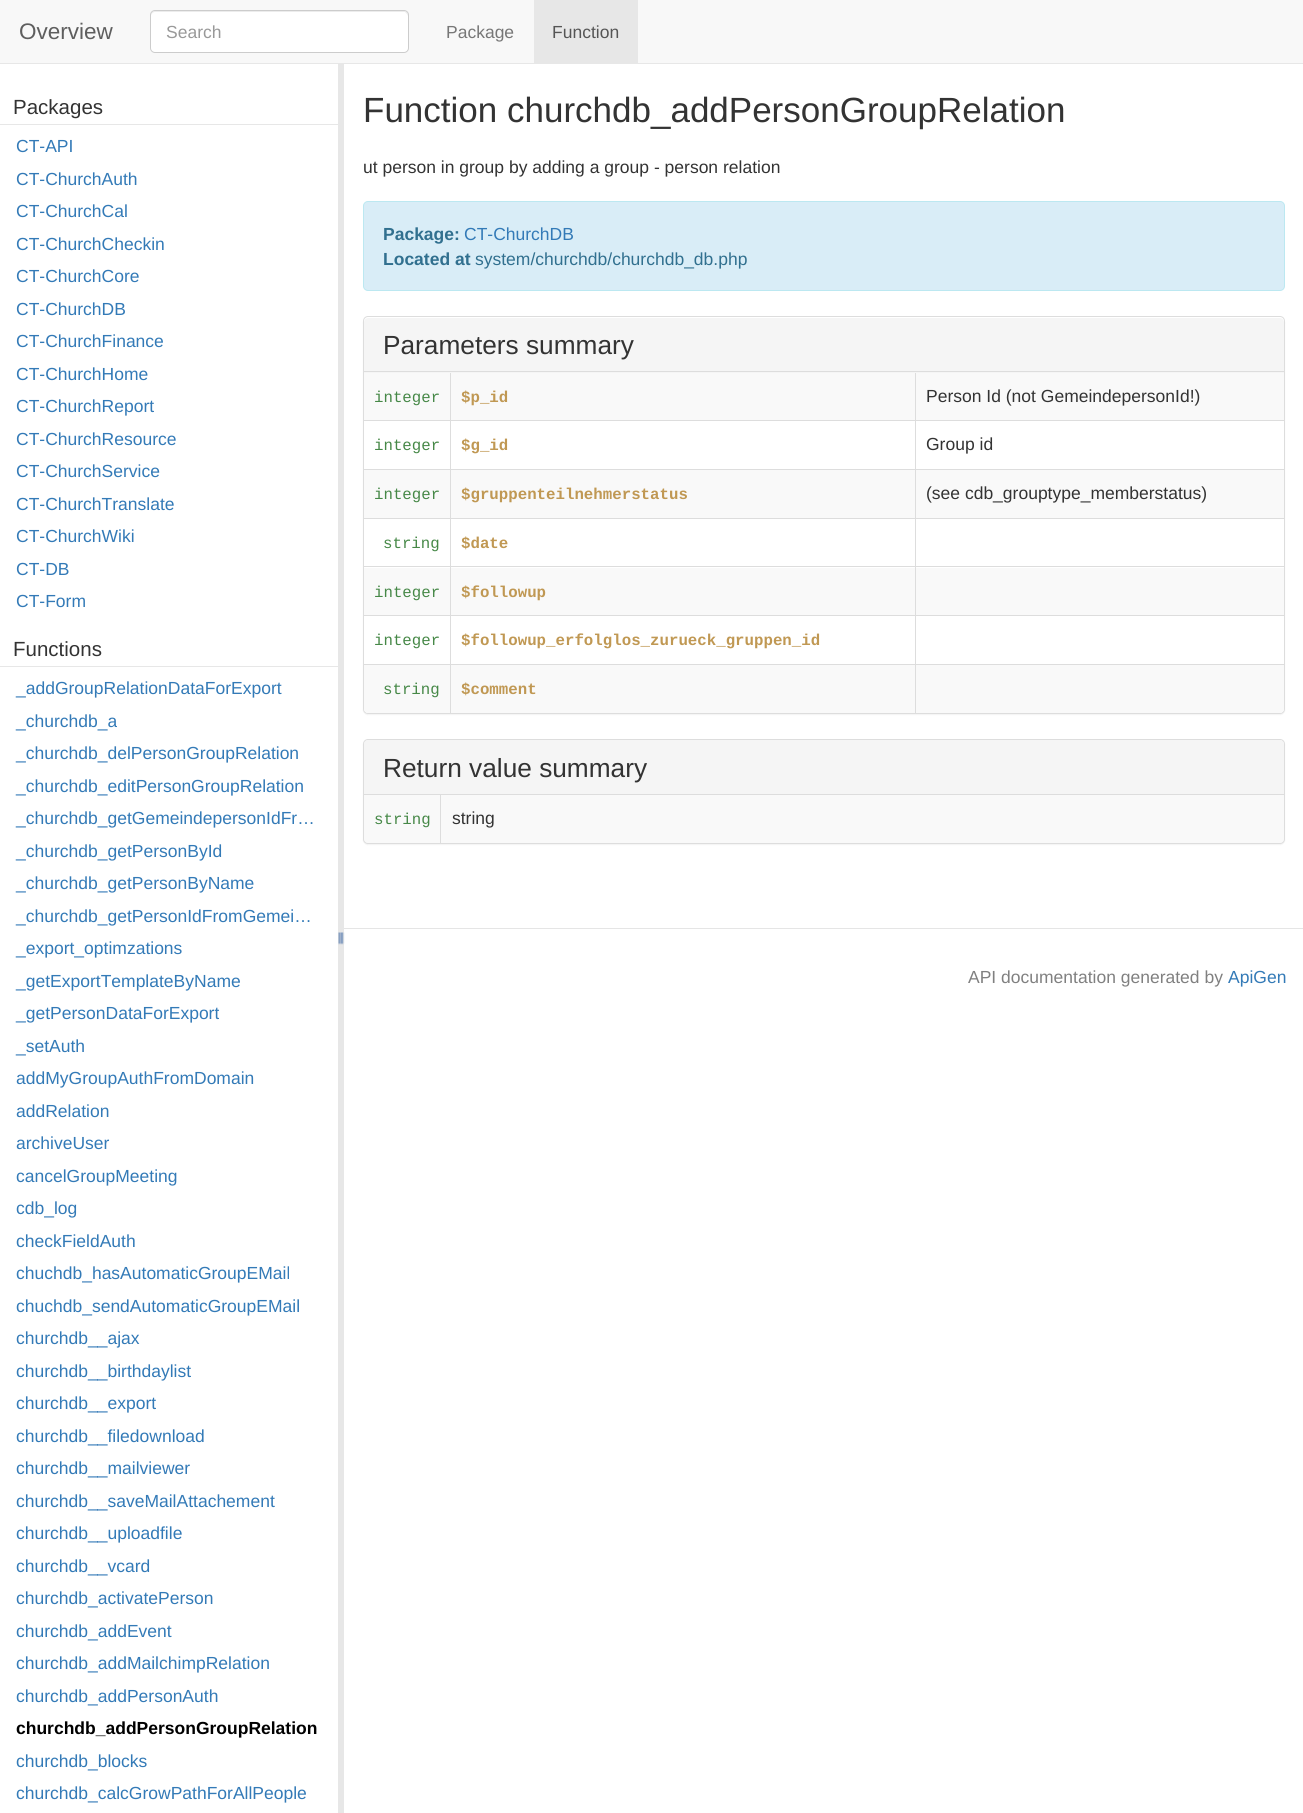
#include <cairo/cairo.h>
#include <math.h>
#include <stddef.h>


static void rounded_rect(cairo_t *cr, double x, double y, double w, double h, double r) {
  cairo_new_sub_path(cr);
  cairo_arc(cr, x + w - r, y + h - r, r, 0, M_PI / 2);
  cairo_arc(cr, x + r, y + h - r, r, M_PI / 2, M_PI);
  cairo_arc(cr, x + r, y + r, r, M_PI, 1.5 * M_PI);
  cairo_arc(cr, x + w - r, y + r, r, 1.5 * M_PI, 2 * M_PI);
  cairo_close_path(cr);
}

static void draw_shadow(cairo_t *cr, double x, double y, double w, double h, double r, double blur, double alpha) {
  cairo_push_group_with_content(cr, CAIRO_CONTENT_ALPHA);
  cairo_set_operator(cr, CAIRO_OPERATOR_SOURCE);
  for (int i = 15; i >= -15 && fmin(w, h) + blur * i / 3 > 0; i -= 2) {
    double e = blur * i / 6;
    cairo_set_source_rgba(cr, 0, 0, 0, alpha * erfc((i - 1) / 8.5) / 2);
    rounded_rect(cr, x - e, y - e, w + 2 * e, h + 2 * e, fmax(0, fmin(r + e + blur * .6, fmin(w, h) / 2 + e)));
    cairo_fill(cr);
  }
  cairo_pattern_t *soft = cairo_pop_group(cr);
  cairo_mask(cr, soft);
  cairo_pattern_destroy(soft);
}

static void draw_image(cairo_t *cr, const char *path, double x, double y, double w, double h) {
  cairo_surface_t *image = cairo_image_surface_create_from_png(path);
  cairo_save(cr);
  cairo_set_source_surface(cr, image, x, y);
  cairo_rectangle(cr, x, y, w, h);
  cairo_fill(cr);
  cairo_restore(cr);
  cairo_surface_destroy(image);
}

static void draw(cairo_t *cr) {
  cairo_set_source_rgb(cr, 1, 1, 1);
  cairo_paint(cr);
  cairo_set_source_rgb(cr, 248 / 255.0, 248 / 255.0, 248 / 255.0);
  cairo_rectangle(cr, 0, 0, 1303, 63);
  cairo_fill(cr);
  cairo_set_source_rgb(cr, 231 / 255.0, 231 / 255.0, 231 / 255.0);
  cairo_rectangle(cr, 338, 63, 6, 1750);
  cairo_fill(cr);
  cairo_rectangle(cr, 0, 63, 1303, 1);
  cairo_fill(cr);
  cairo_set_source_rgb(cr, 1, 1, 1);
  rounded_rect(cr, 150, 10, 259, 43, 5);
  cairo_fill(cr);
  cairo_set_source_rgb(cr, 236 / 255.0, 236 / 255.0, 236 / 255.0);
  cairo_new_path(cr);
  cairo_move_to(cr, 155, 12);
  cairo_line_to(cr, 405, 12);
  cairo_line_to(cr, 407, 14);
  cairo_line_to(cr, 408, 16);
  cairo_line_to(cr, 408, 15);
  cairo_curve_to(cr, 408, 13, 406, 11, 404, 11);
  cairo_line_to(cr, 155, 11);
  cairo_curve_to(cr, 153, 11, 151, 13, 151, 15);
  cairo_line_to(cr, 151, 16);
  cairo_curve_to(cr, 151, 14, 153, 12, 155, 12);
  cairo_close_path(cr);
  cairo_fill(cr);
  rounded_rect(cr, 150.5, 10.5, 258, 42, 4.5);
  cairo_set_source_rgb(cr, 204 / 255.0, 204 / 255.0, 204 / 255.0);
  cairo_set_line_width(cr, 1);
  cairo_stroke(cr);
  cairo_set_source_rgb(cr, 231 / 255.0, 231 / 255.0, 231 / 255.0);
  cairo_rectangle(cr, 534, 0, 104, 63);
  cairo_fill(cr);
  cairo_rectangle(cr, 0, 124, 338, 1);
  cairo_fill(cr);
  cairo_rectangle(cr, 0, 666, 338, 1);
  cairo_fill(cr);
  draw_image(cr, "images/1.png", 338, 932, 7, 13);
  cairo_set_source_rgb(cr, 217 / 255.0, 237 / 255.0, 247 / 255.0);
  rounded_rect(cr, 363.5, 201.5, 921, 89, 4.5);
  cairo_fill_preserve(cr);
  cairo_set_source_rgb(cr, 188 / 255.0, 232 / 255.0, 241 / 255.0);
  cairo_stroke(cr);
  cairo_set_source_rgb(cr, 0, 0, 0);
  draw_shadow(cr, 363, 318, 922, 397, 5, 0.5, 0.05);
  cairo_set_source_rgb(cr, 1, 1, 1);
  rounded_rect(cr, 363.5, 316.5, 921, 397, 4.5);
  cairo_fill_preserve(cr);
  cairo_set_source_rgb(cr, 221 / 255.0, 221 / 255.0, 221 / 255.0);
  cairo_stroke(cr);
  cairo_set_source_rgb(cr, 245 / 255.0, 245 / 255.0, 245 / 255.0);
  cairo_new_path(cr);
  cairo_move_to(cr, 368, 318);
  cairo_line_to(cr, 1280, 318);
  cairo_curve_to(cr, 1282, 318, 1284, 320, 1284, 322);
  cairo_line_to(cr, 1284, 373);
  cairo_line_to(cr, 364, 373);
  cairo_line_to(cr, 364, 322);
  cairo_curve_to(cr, 364, 320, 366, 318, 368, 318);
  cairo_close_path(cr);
  cairo_fill(cr);
  cairo_set_source_rgb(cr, 221 / 255.0, 221 / 255.0, 221 / 255.0);
  cairo_rectangle(cr, 364, 371, 920, 1);
  cairo_fill(cr);
  cairo_set_source_rgb(cr, 249 / 255.0, 249 / 255.0, 249 / 255.0);
  cairo_rectangle(cr, 364, 373, 920, 47);
  cairo_fill(cr);
  cairo_set_source_rgb(cr, 221 / 255.0, 221 / 255.0, 221 / 255.0);
  cairo_rectangle(cr, 915, 420, 370, 1);
  cairo_fill(cr);
  cairo_rectangle(cr, 915, 469, 370, 1);
  cairo_fill(cr);
  cairo_set_source_rgb(cr, 249 / 255.0, 249 / 255.0, 249 / 255.0);
  cairo_rectangle(cr, 364, 470, 920, 48);
  cairo_fill(cr);
  cairo_set_source_rgb(cr, 221 / 255.0, 221 / 255.0, 221 / 255.0);
  cairo_rectangle(cr, 915, 518, 370, 1);
  cairo_fill(cr);
  cairo_rectangle(cr, 915, 566, 370, 1);
  cairo_fill(cr);
  cairo_set_source_rgb(cr, 249 / 255.0, 249 / 255.0, 249 / 255.0);
  cairo_rectangle(cr, 364, 568, 920, 47);
  cairo_fill(cr);
  cairo_set_source_rgb(cr, 221 / 255.0, 221 / 255.0, 221 / 255.0);
  cairo_rectangle(cr, 915, 615, 370, 1);
  cairo_fill(cr);
  cairo_rectangle(cr, 915, 664, 370, 1);
  cairo_fill(cr);
  cairo_set_source_rgb(cr, 249 / 255.0, 249 / 255.0, 249 / 255.0);
  cairo_new_path(cr);
  cairo_move_to(cr, 364, 665);
  cairo_line_to(cr, 1284, 665);
  cairo_line_to(cr, 1284, 709);
  cairo_curve_to(cr, 1284, 711, 1282, 713, 1280, 713);
  cairo_line_to(cr, 368, 713);
  cairo_curve_to(cr, 366, 713, 364, 711, 364, 709);
  cairo_close_path(cr);
  cairo_fill(cr);
  cairo_set_source_rgb(cr, 221 / 255.0, 221 / 255.0, 221 / 255.0);
  cairo_rectangle(cr, 915, 664, 1, 50);
  cairo_fill(cr);
  cairo_rectangle(cr, 450, 664, 466, 1);
  cairo_fill(cr);
  cairo_rectangle(cr, 915, 615, 1, 50);
  cairo_fill(cr);
  cairo_rectangle(cr, 450, 615, 466, 1);
  cairo_fill(cr);
  cairo_rectangle(cr, 915, 566, 1, 50);
  cairo_fill(cr);
  cairo_rectangle(cr, 450, 566, 466, 1);
  cairo_fill(cr);
  cairo_rectangle(cr, 915, 518, 1, 50);
  cairo_fill(cr);
  cairo_rectangle(cr, 450, 518, 466, 1);
  cairo_fill(cr);
  cairo_rectangle(cr, 915, 469, 1, 50);
  cairo_fill(cr);
  cairo_rectangle(cr, 450, 469, 466, 1);
  cairo_fill(cr);
  cairo_rectangle(cr, 915, 420, 1, 50);
  cairo_fill(cr);
  cairo_rectangle(cr, 450, 420, 466, 1);
  cairo_fill(cr);
  cairo_rectangle(cr, 450, 664, 1, 50);
  cairo_fill(cr);
  cairo_rectangle(cr, 364, 664, 87, 1);
  cairo_fill(cr);
  cairo_rectangle(cr, 450, 615, 1, 50);
  cairo_fill(cr);
  cairo_rectangle(cr, 364, 615, 87, 1);
  cairo_fill(cr);
  cairo_rectangle(cr, 450, 566, 1, 50);
  cairo_fill(cr);
  cairo_rectangle(cr, 364, 566, 87, 1);
  cairo_fill(cr);
  cairo_rectangle(cr, 450, 518, 1, 50);
  cairo_fill(cr);
  cairo_rectangle(cr, 364, 518, 87, 1);
  cairo_fill(cr);
  cairo_rectangle(cr, 450, 469, 1, 50);
  cairo_fill(cr);
  cairo_rectangle(cr, 364, 469, 87, 1);
  cairo_fill(cr);
  cairo_rectangle(cr, 450, 420, 1, 50);
  cairo_fill(cr);
  cairo_rectangle(cr, 364, 420, 87, 1);
  cairo_fill(cr);
  cairo_rectangle(cr, 450, 373, 1, 48);
  cairo_fill(cr);
  cairo_rectangle(cr, 915, 373, 1, 48);
  cairo_fill(cr);
  cairo_set_source_rgb(cr, 0, 0, 0);
  draw_shadow(cr, 363, 740, 922, 105, 5, 0.5, 0.05);
  rounded_rect(cr, 363.5, 739.5, 921, 104, 4.5);
  cairo_set_source_rgb(cr, 221 / 255.0, 221 / 255.0, 221 / 255.0);
  cairo_stroke(cr);
  cairo_set_source_rgb(cr, 245 / 255.0, 245 / 255.0, 245 / 255.0);
  cairo_new_path(cr);
  cairo_move_to(cr, 368, 740);
  cairo_line_to(cr, 1280, 740);
  cairo_curve_to(cr, 1282, 740, 1284, 742, 1284, 744);
  cairo_line_to(cr, 1284, 795);
  cairo_line_to(cr, 364, 795);
  cairo_line_to(cr, 364, 744);
  cairo_curve_to(cr, 364, 742, 366, 740, 368, 740);
  cairo_close_path(cr);
  cairo_fill(cr);
  cairo_set_source_rgb(cr, 221 / 255.0, 221 / 255.0, 221 / 255.0);
  cairo_rectangle(cr, 364, 794, 920, 1);
  cairo_fill(cr);
  cairo_set_source_rgb(cr, 249 / 255.0, 249 / 255.0, 249 / 255.0);
  cairo_new_path(cr);
  cairo_move_to(cr, 364, 795);
  cairo_line_to(cr, 1284, 795);
  cairo_line_to(cr, 1284, 839);
  cairo_curve_to(cr, 1284, 841, 1282, 843, 1280, 843);
  cairo_line_to(cr, 368, 843);
  cairo_curve_to(cr, 366, 843, 364, 841, 364, 839);
  cairo_close_path(cr);
  cairo_fill(cr);
  cairo_set_source_rgb(cr, 221 / 255.0, 221 / 255.0, 221 / 255.0);
  cairo_rectangle(cr, 440, 795, 1, 49);
  cairo_fill(cr);
  cairo_set_source_rgb(cr, 229 / 255.0, 229 / 255.0, 229 / 255.0);
  cairo_rectangle(cr, 344, 928, 959, 1);
  cairo_fill(cr);
  cairo_select_font_face(cr, "Liberation Sans", CAIRO_FONT_SLANT_NORMAL, CAIRO_FONT_WEIGHT_NORMAL);
  cairo_set_font_size(cr, 22.5);
  cairo_set_source_rgb(cr, 94 / 255.0, 94 / 255.0, 94 / 255.0);
  cairo_move_to(cr, 19, 39);
  cairo_show_text(cr, "Overview");
  cairo_set_font_size(cr, 17.5);
  cairo_set_source_rgb(cr, 153 / 255.0, 153 / 255.0, 153 / 255.0);
  cairo_move_to(cr, 166, 38);
  cairo_show_text(cr, "Search");
  cairo_set_source_rgb(cr, 119 / 255.0, 119 / 255.0, 119 / 255.0);
  cairo_move_to(cr, 446, 38);
  cairo_show_text(cr, "Package");
  cairo_set_source_rgb(cr, 85 / 255.0, 85 / 255.0, 85 / 255.0);
  cairo_move_to(cr, 552, 38);
  cairo_show_text(cr, "Function");
  cairo_set_font_size(cr, 20.5);
  cairo_set_source_rgb(cr, 51 / 255.0, 51 / 255.0, 51 / 255.0);
  cairo_move_to(cr, 13, 114);
  cairo_show_text(cr, "Packages");
  cairo_set_font_size(cr, 17.5);
  cairo_set_source_rgb(cr, 51 / 255.0, 122 / 255.0, 183 / 255.0);
  cairo_move_to(cr, 16, 152);
  cairo_show_text(cr, "CT-API");
  cairo_move_to(cr, 16, 185);
  cairo_show_text(cr, "CT-ChurchAuth");
  cairo_move_to(cr, 16, 217);
  cairo_show_text(cr, "CT-ChurchCal");
  cairo_move_to(cr, 16, 250);
  cairo_show_text(cr, "CT-ChurchCheckin");
  cairo_move_to(cr, 16, 282);
  cairo_show_text(cr, "CT-ChurchCore");
  cairo_move_to(cr, 16, 315);
  cairo_show_text(cr, "CT-ChurchDB");
  cairo_move_to(cr, 16, 347);
  cairo_show_text(cr, "CT-ChurchFinance");
  cairo_move_to(cr, 16, 380);
  cairo_show_text(cr, "CT-ChurchHome");
  cairo_move_to(cr, 16, 412);
  cairo_show_text(cr, "CT-ChurchReport");
  cairo_move_to(cr, 16, 445);
  cairo_show_text(cr, "CT-ChurchResource");
  cairo_move_to(cr, 16, 477);
  cairo_show_text(cr, "CT-ChurchService");
  cairo_move_to(cr, 16, 510);
  cairo_show_text(cr, "CT-ChurchTranslate");
  cairo_move_to(cr, 16, 542);
  cairo_show_text(cr, "CT-ChurchWiki");
  cairo_move_to(cr, 16, 575);
  cairo_show_text(cr, "CT-DB");
  cairo_move_to(cr, 16, 607);
  cairo_show_text(cr, "CT-Form");
  cairo_set_font_size(cr, 20.5);
  cairo_set_source_rgb(cr, 51 / 255.0, 51 / 255.0, 51 / 255.0);
  cairo_move_to(cr, 13, 656);
  cairo_show_text(cr, "Functions");
  cairo_set_font_size(cr, 17.5);
  cairo_set_source_rgb(cr, 51 / 255.0, 122 / 255.0, 183 / 255.0);
  cairo_move_to(cr, 16, 694);
  cairo_show_text(cr, "_addGroupRelationDataForExport");
  cairo_move_to(cr, 16, 727);
  cairo_show_text(cr, "_churchdb_a");
  cairo_move_to(cr, 16, 759);
  cairo_show_text(cr, "_churchdb_delPersonGroupRelation");
  cairo_move_to(cr, 16, 792);
  cairo_show_text(cr, "_churchdb_editPersonGroupRelation");
  cairo_move_to(cr, 16, 824);
  cairo_show_text(cr, "_churchdb_getGemeindepersonIdFr…");
  cairo_move_to(cr, 16, 857);
  cairo_show_text(cr, "_churchdb_getPersonById");
  cairo_move_to(cr, 16, 889);
  cairo_show_text(cr, "_churchdb_getPersonByName");
  cairo_move_to(cr, 16, 922);
  cairo_show_text(cr, "_churchdb_getPersonIdFromGemei…");
  cairo_move_to(cr, 16, 954);
  cairo_show_text(cr, "_export_optimzations");
  cairo_move_to(cr, 16, 987);
  cairo_show_text(cr, "_getExportTemplateByName");
  cairo_move_to(cr, 16, 1019);
  cairo_show_text(cr, "_getPersonDataForExport");
  cairo_move_to(cr, 16, 1052);
  cairo_show_text(cr, "_setAuth");
  cairo_move_to(cr, 16, 1084);
  cairo_show_text(cr, "addMyGroupAuthFromDomain");
  cairo_move_to(cr, 16, 1117);
  cairo_show_text(cr, "addRelation");
  cairo_move_to(cr, 16, 1149);
  cairo_show_text(cr, "archiveUser");
  cairo_move_to(cr, 16, 1182);
  cairo_show_text(cr, "cancelGroupMeeting");
  cairo_move_to(cr, 16, 1214);
  cairo_show_text(cr, "cdb_log");
  cairo_move_to(cr, 16, 1247);
  cairo_show_text(cr, "checkFieldAuth");
  cairo_move_to(cr, 16, 1279);
  cairo_show_text(cr, "chuchdb_hasAutomaticGroupEMail");
  cairo_move_to(cr, 16, 1312);
  cairo_show_text(cr, "chuchdb_sendAutomaticGroupEMail");
  cairo_move_to(cr, 16, 1344);
  cairo_show_text(cr, "churchdb__ajax");
  cairo_move_to(cr, 16, 1377);
  cairo_show_text(cr, "churchdb__birthdaylist");
  cairo_move_to(cr, 16, 1409);
  cairo_show_text(cr, "churchdb__export");
  cairo_move_to(cr, 16, 1442);
  cairo_show_text(cr, "churchdb__filedownload");
  cairo_move_to(cr, 16, 1474);
  cairo_show_text(cr, "churchdb__mailviewer");
  cairo_move_to(cr, 16, 1507);
  cairo_show_text(cr, "churchdb__saveMailAttachement");
  cairo_move_to(cr, 16, 1539);
  cairo_show_text(cr, "churchdb__uploadfile");
  cairo_move_to(cr, 16, 1572);
  cairo_show_text(cr, "churchdb__vcard");
  cairo_move_to(cr, 16, 1604);
  cairo_show_text(cr, "churchdb_activatePerson");
  cairo_move_to(cr, 16, 1637);
  cairo_show_text(cr, "churchdb_addEvent");
  cairo_move_to(cr, 16, 1669);
  cairo_show_text(cr, "churchdb_addMailchimpRelation");
  cairo_move_to(cr, 16, 1702);
  cairo_show_text(cr, "churchdb_addPersonAuth");
  cairo_select_font_face(cr, "Liberation Sans", CAIRO_FONT_SLANT_NORMAL, CAIRO_FONT_WEIGHT_BOLD);
  cairo_set_source_rgb(cr, 0, 0, 0);
  cairo_move_to(cr, 16, 1734);
  cairo_show_text(cr, "churchdb_addPersonGroupRelation");
  cairo_select_font_face(cr, "Liberation Sans", CAIRO_FONT_SLANT_NORMAL, CAIRO_FONT_WEIGHT_NORMAL);
  cairo_set_source_rgb(cr, 51 / 255.0, 122 / 255.0, 183 / 255.0);
  cairo_move_to(cr, 16, 1767);
  cairo_show_text(cr, "churchdb_blocks");
  cairo_move_to(cr, 16, 1799);
  cairo_show_text(cr, "churchdb_calcGrowPathForAllPeople");
  cairo_set_font_size(cr, 35);
  cairo_set_source_rgb(cr, 51 / 255.0, 51 / 255.0, 51 / 255.0);
  cairo_move_to(cr, 363, 122);
  cairo_show_text(cr, "Function churchdb_addPersonGroupRelation");
  cairo_set_font_size(cr, 17.5);
  cairo_move_to(cr, 363, 173);
  cairo_show_text(cr, "ut person in group by adding a group - person relation");
  cairo_select_font_face(cr, "Liberation Sans", CAIRO_FONT_SLANT_NORMAL, CAIRO_FONT_WEIGHT_BOLD);
  cairo_set_source_rgb(cr, 49 / 255.0, 112 / 255.0, 143 / 255.0);
  cairo_move_to(cr, 383, 240);
  cairo_show_text(cr, "Package:");
  cairo_select_font_face(cr, "Liberation Sans", CAIRO_FONT_SLANT_NORMAL, CAIRO_FONT_WEIGHT_NORMAL);
  cairo_set_source_rgb(cr, 51 / 255.0, 122 / 255.0, 183 / 255.0);
  cairo_move_to(cr, 464, 240);
  cairo_show_text(cr, "CT-ChurchDB");
  cairo_select_font_face(cr, "Liberation Sans", CAIRO_FONT_SLANT_NORMAL, CAIRO_FONT_WEIGHT_BOLD);
  cairo_set_source_rgb(cr, 49 / 255.0, 112 / 255.0, 143 / 255.0);
  cairo_move_to(cr, 383, 265);
  cairo_show_text(cr, "Located at");
  cairo_select_font_face(cr, "Liberation Sans", CAIRO_FONT_SLANT_NORMAL, CAIRO_FONT_WEIGHT_NORMAL);
  cairo_move_to(cr, 475, 265);
  cairo_show_text(cr, "system/churchdb/churchdb_db.php");
  cairo_set_font_size(cr, 26.25);
  cairo_set_source_rgb(cr, 51 / 255.0, 51 / 255.0, 51 / 255.0);
  cairo_move_to(cr, 383, 354);
  cairo_show_text(cr, "Parameters summary");
  cairo_select_font_face(cr, "Liberation Mono", CAIRO_FONT_SLANT_NORMAL, CAIRO_FONT_WEIGHT_NORMAL);
  cairo_set_font_size(cr, 15.75);
  cairo_set_source_rgb(cr, 70 / 255.0, 136 / 255.0, 71 / 255.0);
  cairo_move_to(cr, 374, 402);
  cairo_show_text(cr, "integer");
  cairo_select_font_face(cr, "Liberation Mono", CAIRO_FONT_SLANT_NORMAL, CAIRO_FONT_WEIGHT_BOLD);
  cairo_set_source_rgb(cr, 192 / 255.0, 152 / 255.0, 83 / 255.0);
  cairo_move_to(cr, 461, 402);
  cairo_show_text(cr, "$p_id");
  cairo_select_font_face(cr, "Liberation Sans", CAIRO_FONT_SLANT_NORMAL, CAIRO_FONT_WEIGHT_NORMAL);
  cairo_set_font_size(cr, 17.5);
  cairo_set_source_rgb(cr, 51 / 255.0, 51 / 255.0, 51 / 255.0);
  cairo_move_to(cr, 926, 402);
  cairo_show_text(cr, "Person Id (not GemeindepersonId!)");
  cairo_select_font_face(cr, "Liberation Mono", CAIRO_FONT_SLANT_NORMAL, CAIRO_FONT_WEIGHT_NORMAL);
  cairo_set_font_size(cr, 15.75);
  cairo_set_source_rgb(cr, 70 / 255.0, 136 / 255.0, 71 / 255.0);
  cairo_move_to(cr, 374, 450);
  cairo_show_text(cr, "integer");
  cairo_select_font_face(cr, "Liberation Mono", CAIRO_FONT_SLANT_NORMAL, CAIRO_FONT_WEIGHT_BOLD);
  cairo_set_source_rgb(cr, 192 / 255.0, 152 / 255.0, 83 / 255.0);
  cairo_move_to(cr, 461, 450);
  cairo_show_text(cr, "$g_id");
  cairo_select_font_face(cr, "Liberation Sans", CAIRO_FONT_SLANT_NORMAL, CAIRO_FONT_WEIGHT_NORMAL);
  cairo_set_font_size(cr, 17.5);
  cairo_set_source_rgb(cr, 51 / 255.0, 51 / 255.0, 51 / 255.0);
  cairo_move_to(cr, 926, 450);
  cairo_show_text(cr, "Group id");
  cairo_select_font_face(cr, "Liberation Mono", CAIRO_FONT_SLANT_NORMAL, CAIRO_FONT_WEIGHT_NORMAL);
  cairo_set_font_size(cr, 15.75);
  cairo_set_source_rgb(cr, 70 / 255.0, 136 / 255.0, 71 / 255.0);
  cairo_move_to(cr, 374, 499);
  cairo_show_text(cr, "integer");
  cairo_select_font_face(cr, "Liberation Mono", CAIRO_FONT_SLANT_NORMAL, CAIRO_FONT_WEIGHT_BOLD);
  cairo_set_source_rgb(cr, 192 / 255.0, 152 / 255.0, 83 / 255.0);
  cairo_move_to(cr, 461, 499);
  cairo_show_text(cr, "$gruppenteilnehmerstatus");
  cairo_select_font_face(cr, "Liberation Sans", CAIRO_FONT_SLANT_NORMAL, CAIRO_FONT_WEIGHT_NORMAL);
  cairo_set_font_size(cr, 17.5);
  cairo_set_source_rgb(cr, 51 / 255.0, 51 / 255.0, 51 / 255.0);
  cairo_move_to(cr, 926, 499);
  cairo_show_text(cr, "(see cdb_grouptype_memberstatus)");
  cairo_select_font_face(cr, "Liberation Mono", CAIRO_FONT_SLANT_NORMAL, CAIRO_FONT_WEIGHT_NORMAL);
  cairo_set_font_size(cr, 15.75);
  cairo_set_source_rgb(cr, 70 / 255.0, 136 / 255.0, 71 / 255.0);
  cairo_move_to(cr, 383, 548);
  cairo_show_text(cr, "string");
  cairo_select_font_face(cr, "Liberation Mono", CAIRO_FONT_SLANT_NORMAL, CAIRO_FONT_WEIGHT_BOLD);
  cairo_set_source_rgb(cr, 192 / 255.0, 152 / 255.0, 83 / 255.0);
  cairo_move_to(cr, 461, 548);
  cairo_show_text(cr, "$date");
  cairo_select_font_face(cr, "Liberation Mono", CAIRO_FONT_SLANT_NORMAL, CAIRO_FONT_WEIGHT_NORMAL);
  cairo_set_source_rgb(cr, 70 / 255.0, 136 / 255.0, 71 / 255.0);
  cairo_move_to(cr, 374, 597);
  cairo_show_text(cr, "integer");
  cairo_select_font_face(cr, "Liberation Mono", CAIRO_FONT_SLANT_NORMAL, CAIRO_FONT_WEIGHT_BOLD);
  cairo_set_source_rgb(cr, 192 / 255.0, 152 / 255.0, 83 / 255.0);
  cairo_move_to(cr, 461, 597);
  cairo_show_text(cr, "$followup");
  cairo_select_font_face(cr, "Liberation Mono", CAIRO_FONT_SLANT_NORMAL, CAIRO_FONT_WEIGHT_NORMAL);
  cairo_set_source_rgb(cr, 70 / 255.0, 136 / 255.0, 71 / 255.0);
  cairo_move_to(cr, 374, 645);
  cairo_show_text(cr, "integer");
  cairo_select_font_face(cr, "Liberation Mono", CAIRO_FONT_SLANT_NORMAL, CAIRO_FONT_WEIGHT_BOLD);
  cairo_set_source_rgb(cr, 192 / 255.0, 152 / 255.0, 83 / 255.0);
  cairo_move_to(cr, 461, 645);
  cairo_show_text(cr, "$followup_erfolglos_zurueck_gruppen_id");
  cairo_select_font_face(cr, "Liberation Mono", CAIRO_FONT_SLANT_NORMAL, CAIRO_FONT_WEIGHT_NORMAL);
  cairo_set_source_rgb(cr, 70 / 255.0, 136 / 255.0, 71 / 255.0);
  cairo_move_to(cr, 383, 694);
  cairo_show_text(cr, "string");
  cairo_select_font_face(cr, "Liberation Mono", CAIRO_FONT_SLANT_NORMAL, CAIRO_FONT_WEIGHT_BOLD);
  cairo_set_source_rgb(cr, 192 / 255.0, 152 / 255.0, 83 / 255.0);
  cairo_move_to(cr, 461, 694);
  cairo_show_text(cr, "$comment");
  cairo_select_font_face(cr, "Liberation Sans", CAIRO_FONT_SLANT_NORMAL, CAIRO_FONT_WEIGHT_NORMAL);
  cairo_set_font_size(cr, 26.25);
  cairo_set_source_rgb(cr, 51 / 255.0, 51 / 255.0, 51 / 255.0);
  cairo_move_to(cr, 383, 777);
  cairo_show_text(cr, "Return value summary");
  cairo_select_font_face(cr, "Liberation Mono", CAIRO_FONT_SLANT_NORMAL, CAIRO_FONT_WEIGHT_NORMAL);
  cairo_set_font_size(cr, 15.75);
  cairo_set_source_rgb(cr, 70 / 255.0, 136 / 255.0, 71 / 255.0);
  cairo_move_to(cr, 374, 824);
  cairo_show_text(cr, "string");
  cairo_select_font_face(cr, "Liberation Sans", CAIRO_FONT_SLANT_NORMAL, CAIRO_FONT_WEIGHT_NORMAL);
  cairo_set_font_size(cr, 17.5);
  cairo_set_source_rgb(cr, 51 / 255.0, 51 / 255.0, 51 / 255.0);
  cairo_move_to(cr, 452, 824);
  cairo_show_text(cr, "string");
  cairo_set_source_rgb(cr, 128 / 255.0, 128 / 255.0, 128 / 255.0);
  cairo_move_to(cr, 968, 983);
  cairo_show_text(cr, "API documentation generated by");
  cairo_set_source_rgb(cr, 51 / 255.0, 122 / 255.0, 183 / 255.0);
  cairo_move_to(cr, 1228, 983);
  cairo_show_text(cr, "ApiGen");
}

int main(void) {
  cairo_surface_t *surface = cairo_image_surface_create(CAIRO_FORMAT_RGB24, 1303, 1813);
  cairo_t *cr = cairo_create(surface);
  cairo_font_options_t *options = cairo_font_options_create();
  cairo_font_options_set_hint_metrics(options, CAIRO_HINT_METRICS_OFF);
  cairo_font_options_set_hint_style(options, CAIRO_HINT_STYLE_NONE);
  cairo_set_font_options(cr, options);
  cairo_set_miter_limit(cr, 4);
  draw(cr);
  cairo_surface_write_to_png(surface, "out.png");
  cairo_font_options_destroy(options);
  cairo_destroy(cr);
  cairo_surface_destroy(surface);
  return 0;
}
